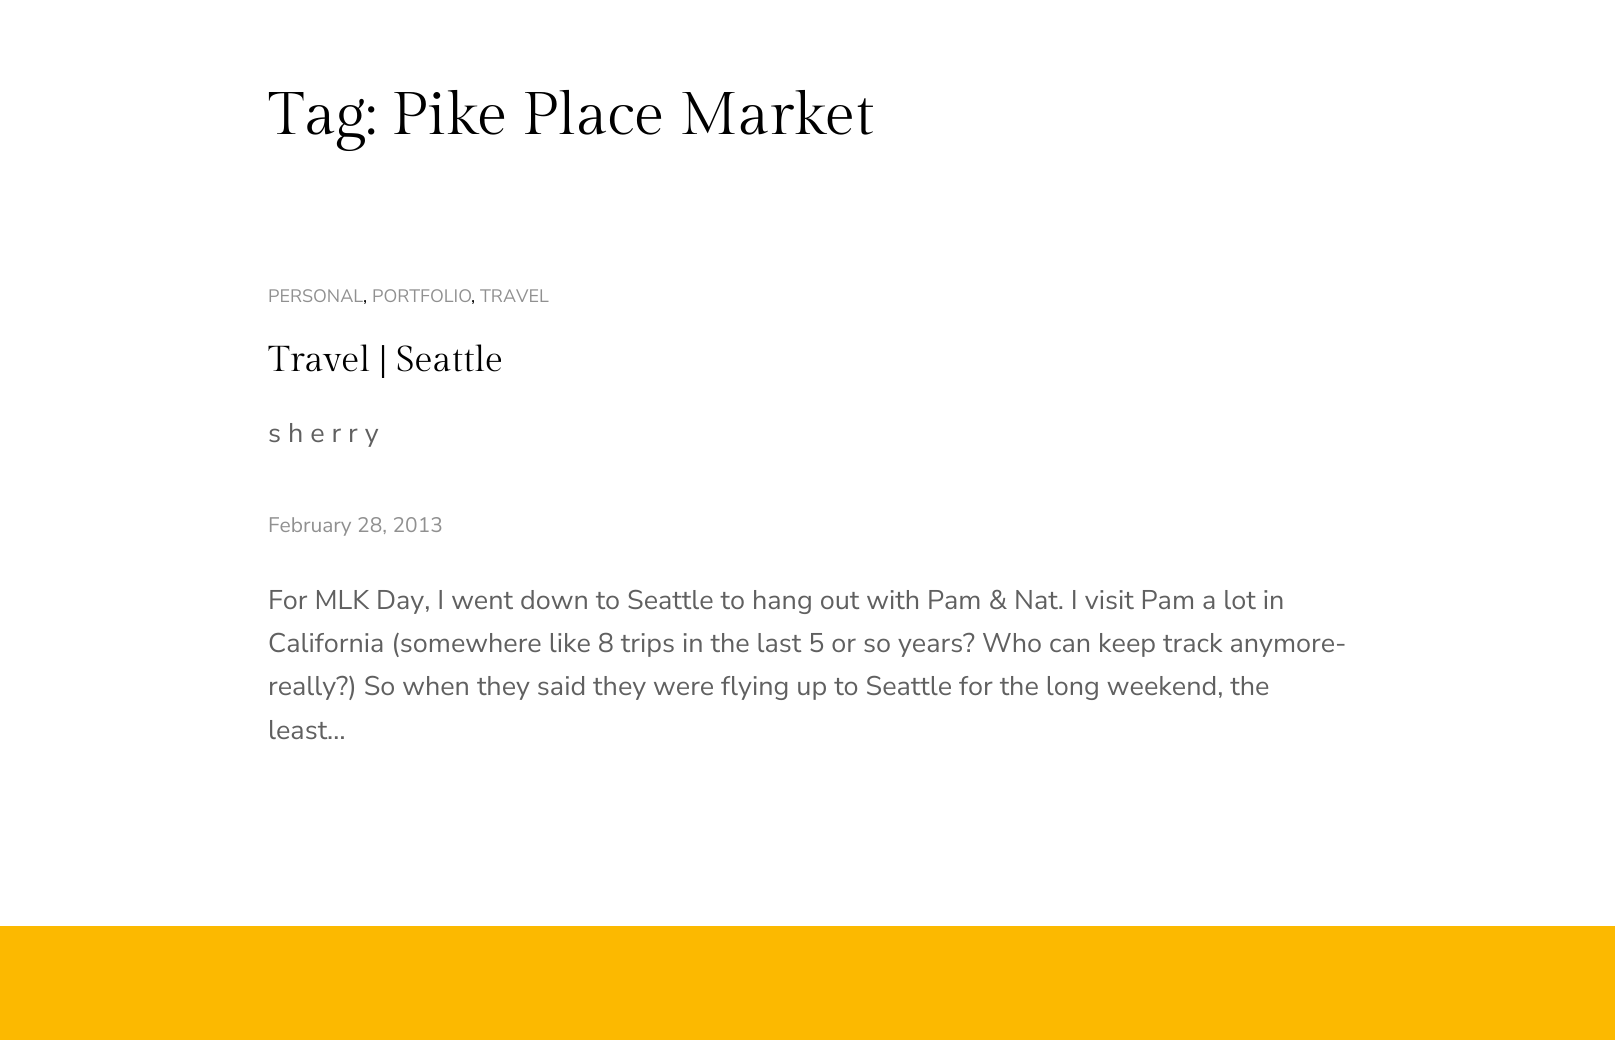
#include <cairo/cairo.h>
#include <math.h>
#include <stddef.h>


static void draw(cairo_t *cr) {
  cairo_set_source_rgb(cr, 1, 1, 1);
  cairo_paint(cr);
  cairo_set_source_rgb(cr, 252 / 255.0, 185 / 255.0, 0);
  cairo_rectangle(cr, 0, 926, 1615, 114);
  cairo_fill(cr);
  cairo_select_font_face(cr, "Gilda Display", CAIRO_FONT_SLANT_NORMAL, CAIRO_FONT_WEIGHT_NORMAL);
  cairo_set_font_size(cr, 60);
  cairo_set_source_rgb(cr, 0, 0, 0);
  cairo_move_to(cr, 268, 134);
  cairo_show_text(cr, "Tag: Pike Place Market");
  cairo_select_font_face(cr, "Nunito Sans", CAIRO_FONT_SLANT_NORMAL, CAIRO_FONT_WEIGHT_NORMAL);
  cairo_set_font_size(cr, 18);
  cairo_set_source_rgb(cr, 144 / 255.0, 144 / 255.0, 144 / 255.0);
  cairo_move_to(cr, 268, 302);
  cairo_show_text(cr, "PERSONAL");
  cairo_move_to(cr, 372, 302);
  cairo_show_text(cr, "PORTFOLIO");
  cairo_move_to(cr, 480, 302);
  cairo_show_text(cr, "TRAVEL");
  cairo_set_source_rgb(cr, 0, 0, 0);
  cairo_move_to(cr, 363, 302);
  cairo_show_text(cr, ",");
  cairo_move_to(cr, 471, 302);
  cairo_show_text(cr, ",");
  cairo_select_font_face(cr, "Gilda Display", CAIRO_FONT_SLANT_NORMAL, CAIRO_FONT_WEIGHT_NORMAL);
  cairo_set_font_size(cr, 36);
  cairo_move_to(cr, 268, 371);
  cairo_show_text(cr, "Travel | Seattle");
  cairo_select_font_face(cr, "Nunito Sans", CAIRO_FONT_SLANT_NORMAL, CAIRO_FONT_WEIGHT_NORMAL);
  cairo_set_font_size(cr, 27);
  cairo_set_source_rgb(cr, 96 / 255.0, 96 / 255.0, 96 / 255.0);
  cairo_move_to(cr, 268, 442);
  cairo_show_text(cr, "s h e r r y");
  cairo_set_font_size(cr, 21);
  cairo_set_source_rgb(cr, 144 / 255.0, 144 / 255.0, 144 / 255.0);
  cairo_move_to(cr, 268, 532);
  cairo_show_text(cr, "February 28, 2013");
  cairo_set_font_size(cr, 27);
  cairo_set_source_rgb(cr, 96 / 255.0, 96 / 255.0, 96 / 255.0);
  cairo_move_to(cr, 268, 609);
  cairo_show_text(cr, "For MLK Day, I went down to Seattle to hang out with Pam & Nat. I visit Pam a lot in");
  cairo_move_to(cr, 268, 652);
  cairo_show_text(cr, "California (somewhere like 8 trips in the last 5 or so years? Who can keep track anymore-");
  cairo_move_to(cr, 268, 695);
  cairo_show_text(cr, "really?) So when they said they were flying up to Seattle for the long weekend, the");
  cairo_move_to(cr, 268, 739);
  cairo_show_text(cr, "least…");
}

int main(void) {
  cairo_surface_t *surface = cairo_image_surface_create(CAIRO_FORMAT_RGB24, 1615, 1040);
  cairo_t *cr = cairo_create(surface);
  cairo_font_options_t *options = cairo_font_options_create();
  cairo_font_options_set_hint_metrics(options, CAIRO_HINT_METRICS_OFF);
  cairo_font_options_set_hint_style(options, CAIRO_HINT_STYLE_NONE);
  cairo_set_font_options(cr, options);
  cairo_set_miter_limit(cr, 4);
  draw(cr);
  cairo_surface_write_to_png(surface, "out.png");
  cairo_font_options_destroy(options);
  cairo_destroy(cr);
  cairo_surface_destroy(surface);
  return 0;
}
